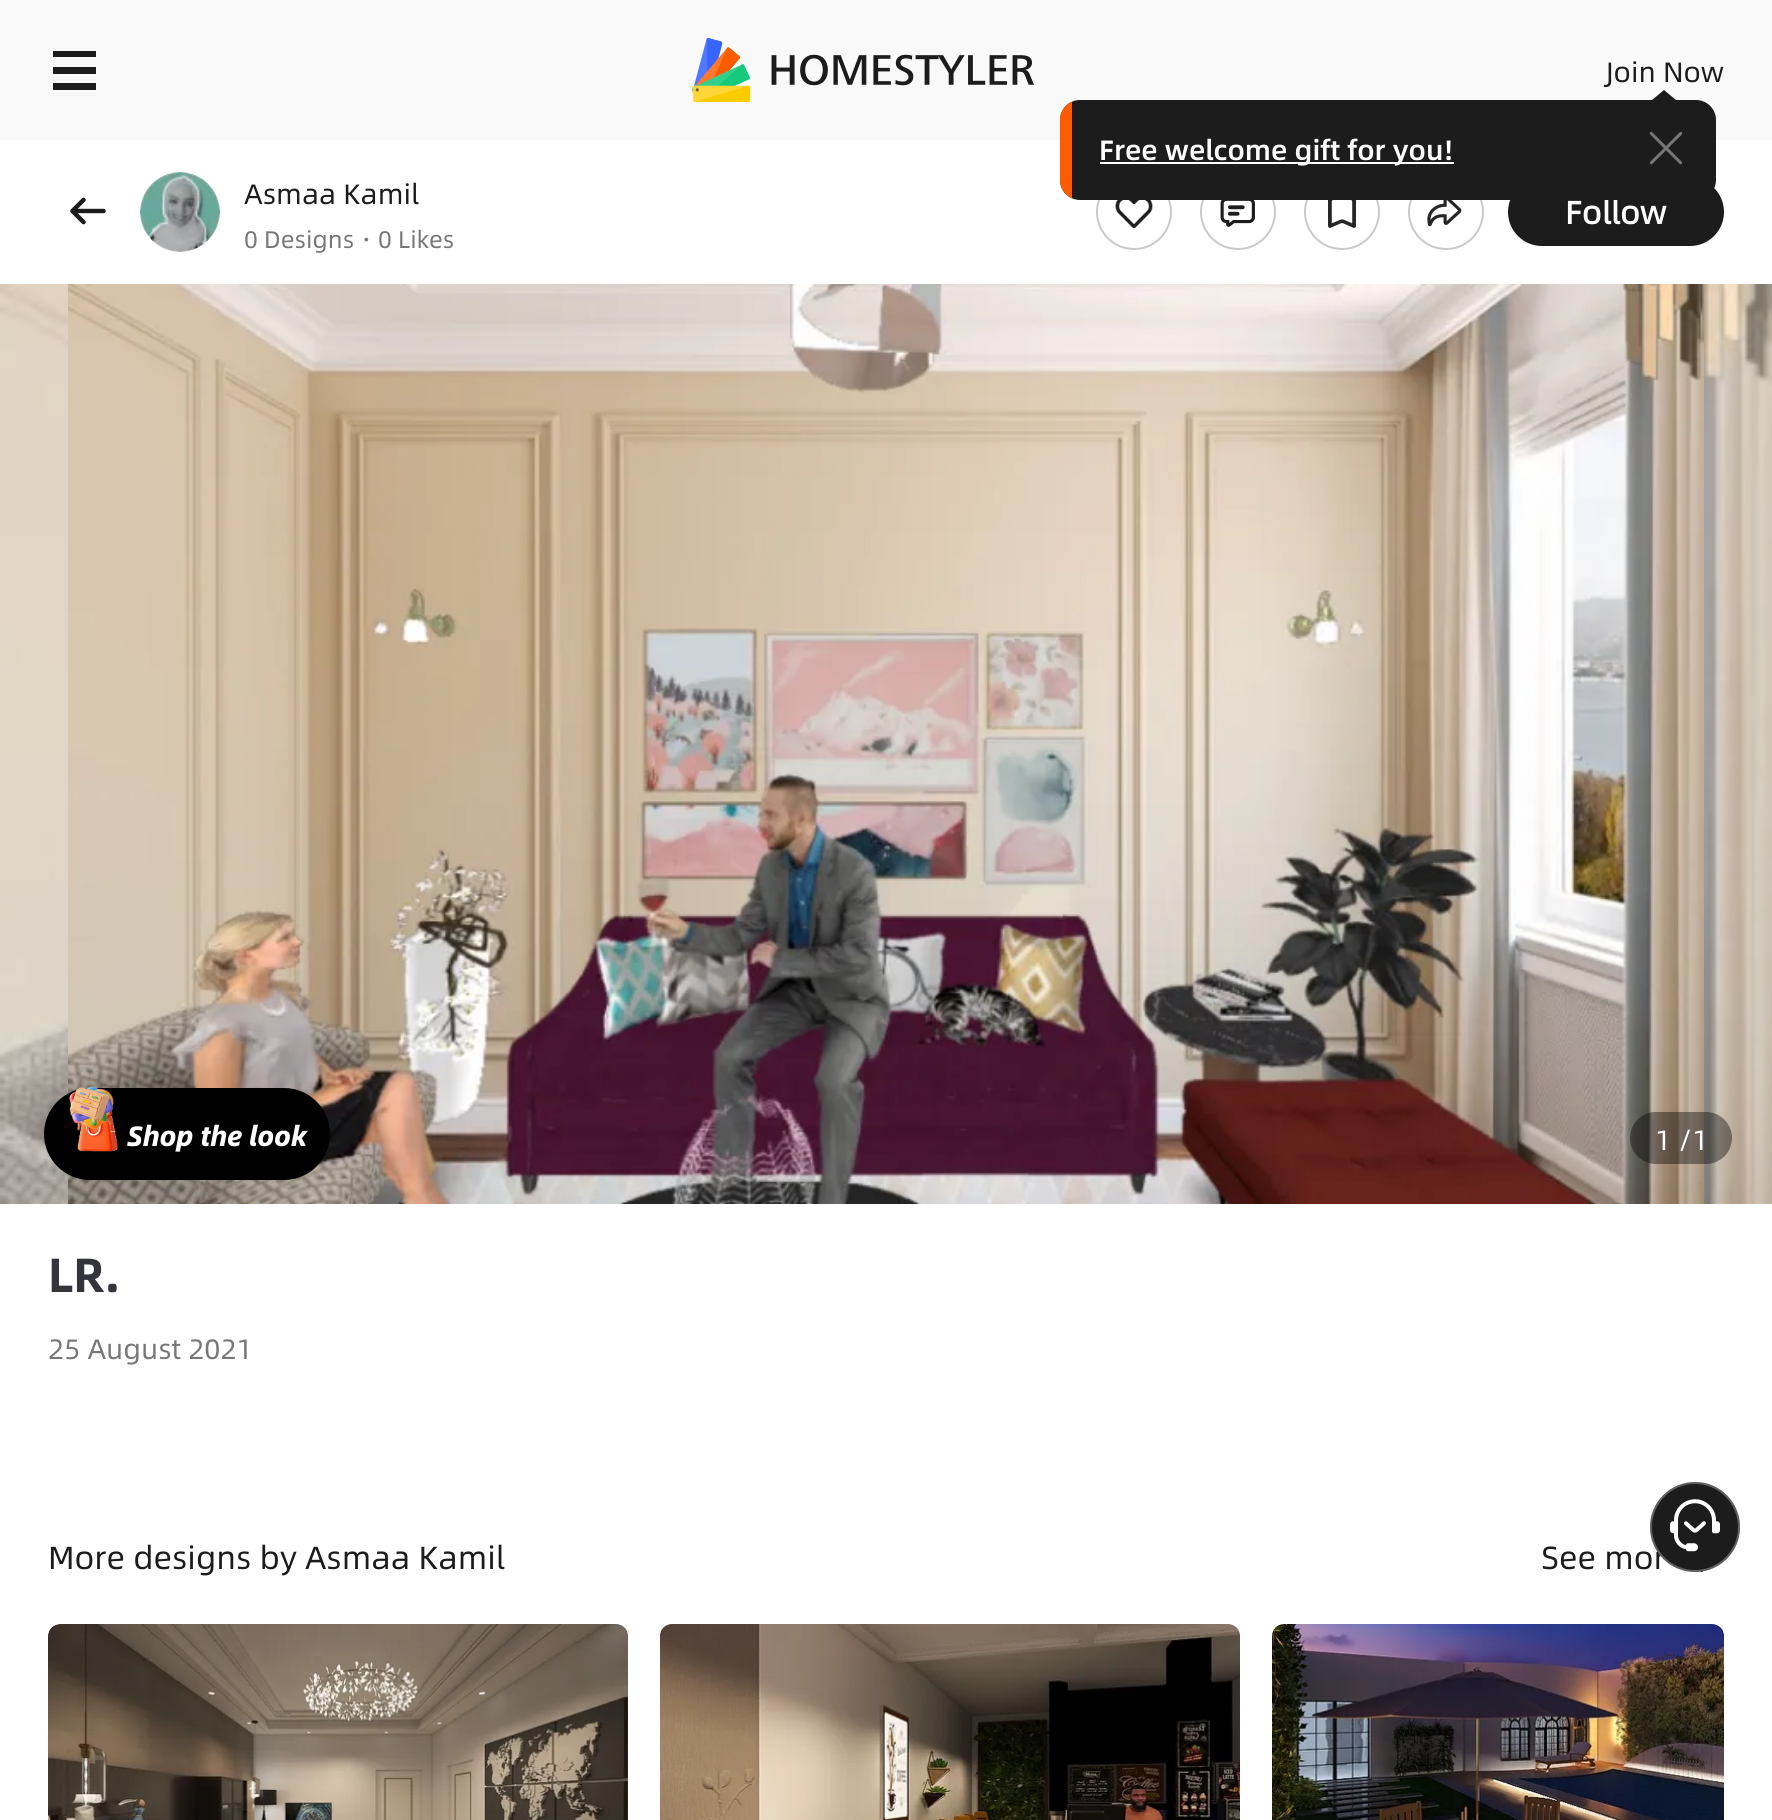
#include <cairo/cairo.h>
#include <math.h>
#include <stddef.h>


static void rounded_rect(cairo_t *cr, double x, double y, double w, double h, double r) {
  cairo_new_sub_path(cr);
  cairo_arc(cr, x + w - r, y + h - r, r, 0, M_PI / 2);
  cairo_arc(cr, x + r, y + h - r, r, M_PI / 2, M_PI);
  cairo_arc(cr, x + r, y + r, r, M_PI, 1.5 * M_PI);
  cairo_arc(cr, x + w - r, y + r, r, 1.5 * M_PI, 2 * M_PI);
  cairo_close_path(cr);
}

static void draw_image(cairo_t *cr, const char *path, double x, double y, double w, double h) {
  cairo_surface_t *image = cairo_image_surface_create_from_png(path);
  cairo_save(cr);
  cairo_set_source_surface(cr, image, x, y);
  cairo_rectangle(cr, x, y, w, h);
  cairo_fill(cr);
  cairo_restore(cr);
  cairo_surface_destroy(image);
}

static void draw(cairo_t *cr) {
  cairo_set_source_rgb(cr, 1, 1, 1);
  cairo_paint(cr);
  cairo_set_source_rgb(cr, 249 / 255.0, 249 / 255.0, 249 / 255.0);
  cairo_rectangle(cr, 0, 0, 1772, 140);
  cairo_fill(cr);
  cairo_set_source_rgb(cr, 28 / 255.0, 28 / 255.0, 28 / 255.0);
  cairo_new_path(cr);
  cairo_move_to(cr, 53, 51);
  cairo_line_to(cr, 96, 51);
  cairo_line_to(cr, 96, 57);
  cairo_line_to(cr, 53, 57);
  cairo_close_path(cr);
  cairo_move_to(cr, 53, 67);
  cairo_line_to(cr, 96, 67);
  cairo_line_to(cr, 96, 74);
  cairo_line_to(cr, 53, 74);
  cairo_close_path(cr);
  cairo_move_to(cr, 53, 83);
  cairo_line_to(cr, 96, 83);
  cairo_line_to(cr, 96, 90);
  cairo_line_to(cr, 53, 90);
  cairo_close_path(cr);
  cairo_fill(cr);
  draw_image(cr, "images/1.png", 692, 38, 342, 64);
  cairo_new_path(cr);
  cairo_move_to(cr, 1676, 100);
  cairo_line_to(cr, 1652, 100);
  cairo_line_to(cr, 1664, 90);
  cairo_close_path(cr);
  cairo_fill(cr);
  draw_image(cr, "images/3.png", 140, 172, 80, 80);
  cairo_arc(cr, 1134, 212, 37, 0, 2 * M_PI);
  cairo_set_source_rgb(cr, 202 / 255.0, 202 / 255.0, 202 / 255.0);
  cairo_stroke(cr);
  draw_image(cr, "images/4.png", 1115, 200, 38, 28);
  cairo_arc(cr, 1238, 212, 37, 0, 2 * M_PI);
  cairo_stroke(cr);
  draw_image(cr, "images/5.png", 1220, 200, 35, 27);
  cairo_arc(cr, 1342, 212, 37, 0, 2 * M_PI);
  cairo_stroke(cr);
  draw_image(cr, "images/6.png", 1328, 200, 28, 28);
  cairo_arc(cr, 1446, 212, 37, 0, 2 * M_PI);
  cairo_stroke(cr);
  draw_image(cr, "images/7.png", 1427, 200, 35, 27);
  cairo_set_source_rgb(cr, 28 / 255.0, 28 / 255.0, 28 / 255.0);
  rounded_rect(cr, 1508, 178, 216, 68, 34);
  cairo_fill(cr);
  draw_image(cr, "images/8.png", 0, 284, 1772, 920);
  draw_image(cr, "images/9.png", 68, 284, 1636, 920);
  cairo_set_source_rgb(cr, 0, 0, 0);
  rounded_rect(cr, 44, 1088, 286, 92, 46);
  cairo_fill(cr);
  draw_image(cr, "images/10.png", 86, 1086, 16, 6);
  draw_image(cr, "images/17.png", 77, 1115, 41, 37);
  draw_image(cr, "images/13.png", 69, 1089, 47, 43);
  draw_image(cr, "images/15.png", 94, 1090, 2, 2);
  draw_image(cr, "images/12.png", 70, 1088, 44, 42);
  draw_image(cr, "images/14.png", 79, 1089, 32, 38);
  draw_image(cr, "images/16.png", 71, 1091, 42, 33);
  draw_image(cr, "images/11.png", 70, 1087, 40, 36);
  cairo_set_source_rgba(cr, 0, 0, 0, 0.4);
  rounded_rect(cr, 1630, 1112, 102, 52, 26);
  cairo_fill(cr);
  draw_image(cr, "images/18.png", 1700, 1570, 5, 2);
  draw_image(cr, "images/19.png", 48, 1624, 580, 196);
  draw_image(cr, "images/20.png", 660, 1624, 580, 196);
  draw_image(cr, "images/21.png", 1272, 1624, 452, 196);
  draw_image(cr, "images/22.png", 70, 197, 36, 28);
  cairo_set_source_rgb(cr, 28 / 255.0, 28 / 255.0, 28 / 255.0);
  cairo_arc(cr, 1695, 1527, 45, 0, 2 * M_PI);
  cairo_fill(cr);
  cairo_select_font_face(cr, "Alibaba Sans", CAIRO_FONT_SLANT_NORMAL, CAIRO_FONT_WEIGHT_NORMAL);
  cairo_set_font_size(cr, 28);
  cairo_move_to(cr, 1606, 82);
  cairo_show_text(cr, "Join Now");
  cairo_move_to(cr, 244, 204);
  cairo_show_text(cr, "Asmaa Kamil");
  cairo_set_font_size(cr, 24);
  cairo_set_source_rgb(cr, 119 / 255.0, 119 / 255.0, 119 / 255.0);
  cairo_move_to(cr, 244, 248);
  cairo_show_text(cr, "0 Designs");
  cairo_select_font_face(cr, "WenQuanYi Zen Hei Medium", CAIRO_FONT_SLANT_NORMAL, CAIRO_FONT_WEIGHT_NORMAL);
  cairo_move_to(cr, 354, 248);
  cairo_show_text(cr, "・");
  cairo_select_font_face(cr, "Alibaba Sans", CAIRO_FONT_SLANT_NORMAL, CAIRO_FONT_WEIGHT_NORMAL);
  cairo_move_to(cr, 378, 248);
  cairo_show_text(cr, "0 Likes");
  cairo_select_font_face(cr, "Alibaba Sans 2", CAIRO_FONT_SLANT_NORMAL, CAIRO_FONT_WEIGHT_BOLD);
  cairo_set_font_size(cr, 32);
  cairo_set_source_rgb(cr, 1, 1, 1);
  cairo_move_to(cr, 1565, 224);
  cairo_show_text(cr, "Follow");
  cairo_set_source_rgb(cr, 28 / 255.0, 28 / 255.0, 28 / 255.0);
  rounded_rect(cr, 1060, 100, 656, 100, 20);
  cairo_fill(cr);
  draw_image(cr, "images/2.png", 1649, 131, 34, 34);
  cairo_save(cr);
  rounded_rect(cr, 1060, 100, 656, 100, 20);
  cairo_clip(cr);
  cairo_set_source_rgb(cr, 1, 92 / 255.0, 0);
  cairo_rectangle(cr, 1060, 101, 12, 98);
  cairo_fill(cr);
  cairo_restore(cr);
  cairo_set_source_rgb(cr, 1, 1, 1);
  cairo_rectangle(cr, 1100, 162, 354, 2);
  cairo_fill(cr);
  cairo_select_font_face(cr, "Alibaba Sans Medium", CAIRO_FONT_SLANT_NORMAL, CAIRO_FONT_WEIGHT_NORMAL);
  cairo_set_font_size(cr, 28);
  cairo_move_to(cr, 1099, 160);
  cairo_show_text(cr, "Free welcome gift for you!");
  cairo_select_font_face(cr, "Alibaba Sans Black", CAIRO_FONT_SLANT_ITALIC, CAIRO_FONT_WEIGHT_NORMAL);
  cairo_move_to(cr, 127, 1146);
  cairo_show_text(cr, "Shop the look");
  cairo_select_font_face(cr, "Alibaba Sans", CAIRO_FONT_SLANT_NORMAL, CAIRO_FONT_WEIGHT_NORMAL);
  cairo_move_to(cr, 1655, 1150);
  cairo_show_text(cr, "1 /1");
  cairo_select_font_face(cr, "Alibaba Sans", CAIRO_FONT_SLANT_NORMAL, CAIRO_FONT_WEIGHT_BOLD);
  cairo_set_font_size(cr, 48);
  cairo_set_source_rgb(cr, 51 / 255.0, 53 / 255.0, 59 / 255.0);
  cairo_move_to(cr, 48, 1292);
  cairo_show_text(cr, "LR.");
  cairo_select_font_face(cr, "Alibaba Sans", CAIRO_FONT_SLANT_NORMAL, CAIRO_FONT_WEIGHT_NORMAL);
  cairo_set_font_size(cr, 28);
  cairo_set_source_rgb(cr, 119 / 255.0, 119 / 255.0, 119 / 255.0);
  cairo_move_to(cr, 48, 1359);
  cairo_show_text(cr, "25 August 2021");
  cairo_set_font_size(cr, 32);
  cairo_set_source_rgb(cr, 28 / 255.0, 28 / 255.0, 28 / 255.0);
  cairo_move_to(cr, 48, 1569);
  cairo_show_text(cr, "More designs by Asmaa Kamil");
  cairo_move_to(cr, 1541, 1569);
  cairo_show_text(cr, "See mor");
  cairo_new_path(cr);
  cairo_arc(cr, 1695, 1527, 44, 0, 2 * M_PI);
  cairo_set_source_rgba(cr, 1, 1, 1, 0.3);
  cairo_stroke(cr);
  draw_image(cr, "images/23.png", 1670, 1499, 50, 53);
}

int main(void) {
  cairo_surface_t *surface = cairo_image_surface_create(CAIRO_FORMAT_RGB24, 1772, 1820);
  cairo_t *cr = cairo_create(surface);
  cairo_font_options_t *options = cairo_font_options_create();
  cairo_font_options_set_hint_metrics(options, CAIRO_HINT_METRICS_OFF);
  cairo_font_options_set_hint_style(options, CAIRO_HINT_STYLE_NONE);
  cairo_set_font_options(cr, options);
  cairo_set_miter_limit(cr, 4);
  draw(cr);
  cairo_surface_write_to_png(surface, "out.png");
  cairo_font_options_destroy(options);
  cairo_destroy(cr);
  cairo_surface_destroy(surface);
  return 0;
}
